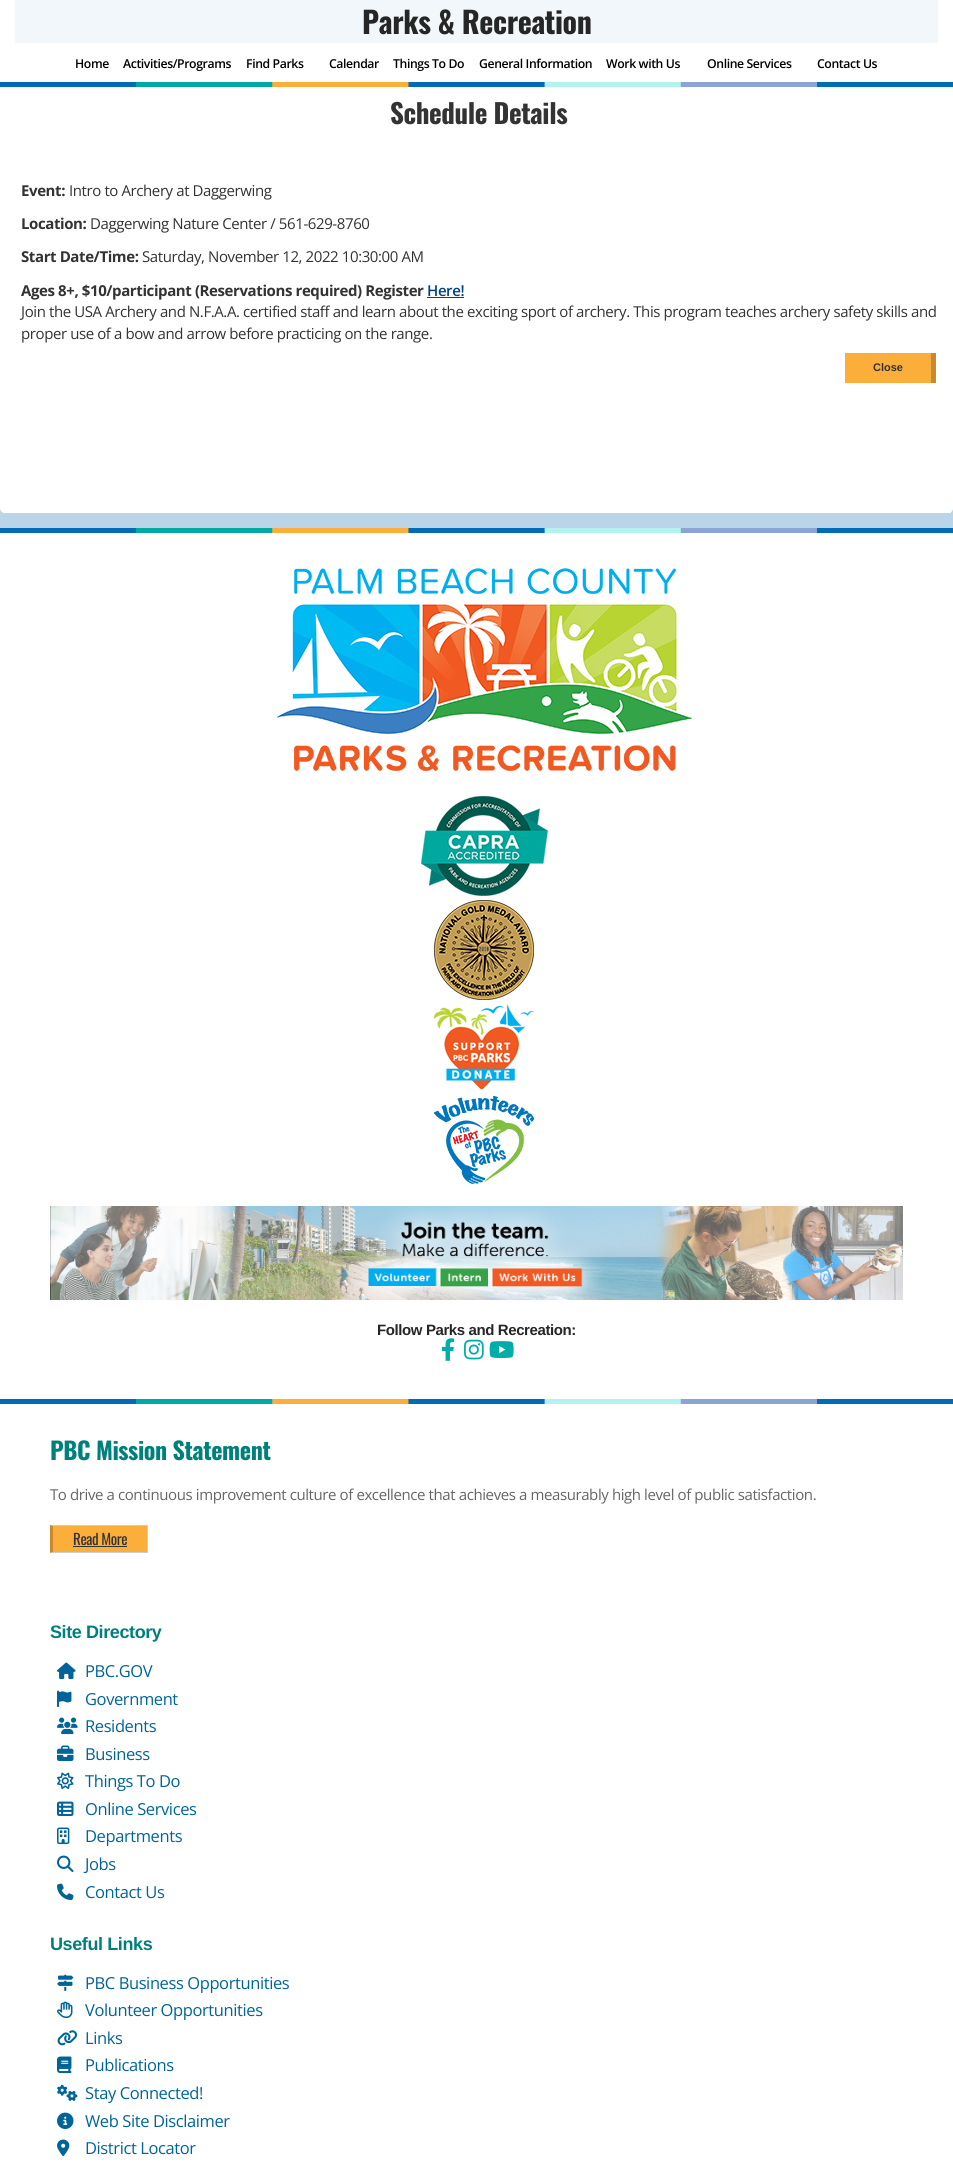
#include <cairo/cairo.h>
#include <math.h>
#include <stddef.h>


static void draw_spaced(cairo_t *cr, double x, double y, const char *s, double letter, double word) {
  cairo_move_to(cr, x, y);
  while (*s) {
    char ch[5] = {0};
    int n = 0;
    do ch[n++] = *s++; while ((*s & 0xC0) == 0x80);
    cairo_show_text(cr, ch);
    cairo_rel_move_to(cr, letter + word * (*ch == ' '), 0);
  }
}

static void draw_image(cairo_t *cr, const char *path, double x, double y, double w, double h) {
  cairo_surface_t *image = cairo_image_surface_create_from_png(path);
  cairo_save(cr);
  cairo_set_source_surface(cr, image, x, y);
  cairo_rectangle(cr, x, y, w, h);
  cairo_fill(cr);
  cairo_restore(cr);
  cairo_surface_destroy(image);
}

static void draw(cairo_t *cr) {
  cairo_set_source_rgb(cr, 186 / 255.0, 213 / 255.0, 232 / 255.0);
  cairo_paint(cr);
  cairo_set_source_rgb(cr, 241 / 255.0, 247 / 255.0, 250 / 255.0);
  cairo_rectangle(cr, 15, 0, 923, 43);
  cairo_fill(cr);
  cairo_set_source_rgb(cr, 1, 1, 1);
  cairo_rectangle(cr, 938, 0, 15, 43);
  cairo_fill(cr);
  cairo_rectangle(cr, 0, 0, 15, 43);
  cairo_fill(cr);
  cairo_rectangle(cr, 0, 43, 953, 39);
  cairo_fill(cr);
  draw_image(cr, "images/1.png", 0, 82, 953, 5);
  cairo_rectangle(cr, 0, 87, 953, 11);
  cairo_fill(cr);
  cairo_new_path(cr);
  cairo_move_to(cr, 0, 98);
  cairo_line_to(cr, 953, 98);
  cairo_line_to(cr, 953, 508);
  cairo_curve_to(cr, 953, 511, 951, 513, 948, 513);
  cairo_line_to(cr, 5, 513);
  cairo_curve_to(cr, 2, 513, 0, 511, 0, 508);
  cairo_close_path(cr);
  cairo_fill(cr);
  cairo_rectangle(cr, 3, 512, 948, 1);
  cairo_fill(cr);
  cairo_set_source_rgb(cr, 0, 67 / 255.0, 133 / 255.0);
  cairo_rectangle(cr, 427, 297, 37, 1);
  cairo_fill(cr);
  cairo_set_source_rgb(cr, 251 / 255.0, 174 / 255.0, 58 / 255.0);
  cairo_rectangle(cr, 845, 353, 86, 30);
  cairo_fill(cr);
  cairo_set_source_rgb(cr, 199 / 255.0, 138 / 255.0, 46 / 255.0);
  cairo_rectangle(cr, 931, 353, 5, 30);
  cairo_fill(cr);
  cairo_set_source_rgb(cr, 1, 1, 1);
  cairo_rectangle(cr, 0, 533, 953, 866);
  cairo_fill(cr);
  draw_image(cr, "images/1.png", 0, 528, 953, 5);
  draw_image(cr, "images/2.png", 276, 568, 416, 203);
  draw_image(cr, "images/3.png", 421, 796, 127, 100);
  draw_image(cr, "images/4.png", 434, 900, 100, 100);
  draw_image(cr, "images/5.png", 434, 1004, 100, 86);
  draw_image(cr, "images/6.png", 434, 1096, 100, 88);
  draw_image(cr, "images/7.png", 50, 1206, 853, 94);
  draw_image(cr, "images/8.png", 442, 1338, 13, 23);
  draw_image(cr, "images/9.png", 464, 1339, 20, 21);
  draw_image(cr, "images/10.png", 489, 1341, 25, 17);
  cairo_rectangle(cr, 0, 1404, 953, 759);
  cairo_fill(cr);
  draw_image(cr, "images/1.png", 0, 1399, 953, 5);
  cairo_set_source_rgb(cr, 251 / 255.0, 174 / 255.0, 58 / 255.0);
  cairo_rectangle(cr, 53, 1526, 94, 26);
  cairo_fill(cr);
  cairo_set_source_rgb(cr, 204 / 255.0, 204 / 255.0, 204 / 255.0);
  cairo_new_path(cr);
  cairo_move_to(cr, 50, 1525);
  cairo_line_to(cr, 148, 1525);
  cairo_line_to(cr, 147, 1526);
  cairo_line_to(cr, 53, 1526);
  cairo_close_path(cr);
  cairo_fill(cr);
  cairo_rectangle(cr, 147, 1525, 1, 28);
  cairo_fill(cr);
  cairo_new_path(cr);
  cairo_move_to(cr, 148, 1553);
  cairo_line_to(cr, 50, 1553);
  cairo_line_to(cr, 53, 1552);
  cairo_line_to(cr, 147, 1552);
  cairo_close_path(cr);
  cairo_fill(cr);
  cairo_set_source_rgb(cr, 199 / 255.0, 138 / 255.0, 46 / 255.0);
  cairo_new_path(cr);
  cairo_move_to(cr, 50, 1553);
  cairo_line_to(cr, 50, 1525);
  cairo_line_to(cr, 53, 1526);
  cairo_line_to(cr, 53, 1552);
  cairo_close_path(cr);
  cairo_fill(cr);
  cairo_set_source_rgb(cr, 51 / 255.0, 51 / 255.0, 51 / 255.0);
  cairo_rectangle(cr, 73, 1546, 54, 1);
  cairo_fill(cr);
  draw_image(cr, "images/11.png", 57, 1662, 19, 18);
  draw_image(cr, "images/12.png", 57, 1690, 15, 17);
  draw_image(cr, "images/13.png", 57, 1717, 21, 18);
  draw_image(cr, "images/14.png", 57, 1745, 17, 16);
  draw_image(cr, "images/15.png", 57, 1772, 17, 17);
  draw_image(cr, "images/16.png", 57, 1801, 17, 15);
  draw_image(cr, "images/17.png", 57, 1827, 13, 18);
  draw_image(cr, "images/18.png", 57, 1855, 17, 17);
  draw_image(cr, "images/19.png", 57, 1883, 17, 18);
  draw_image(cr, "images/20.png", 57, 1974, 17, 17);
  draw_image(cr, "images/21.png", 57, 2001, 16, 18);
  draw_image(cr, "images/22.png", 57, 2030, 20, 16);
  draw_image(cr, "images/23.png", 57, 2056, 15, 18);
  draw_image(cr, "images/24.png", 57, 2084, 21, 17);
  draw_image(cr, "images/25.png", 57, 2112, 17, 18);
  draw_image(cr, "images/26.png", 57, 2139, 13, 17);
  cairo_select_font_face(cr, "Oswald", CAIRO_FONT_SLANT_NORMAL, CAIRO_FONT_WEIGHT_BOLD);
  cairo_set_font_size(cr, 30);
  cairo_set_source_rgb(cr, 38 / 255.0, 38 / 255.0, 38 / 255.0);
  draw_spaced(cr, 362, 34, "Parks & Recreation", -0.4, 0);
  cairo_select_font_face(cr, "Open Sans SemiBold", CAIRO_FONT_SLANT_NORMAL, CAIRO_FONT_WEIGHT_NORMAL);
  cairo_set_font_size(cr, 12.25);
  cairo_set_source_rgb(cr, 0, 0, 0);
  draw_spaced(cr, 75, 68, "Home", -0.4, 0);
  draw_spaced(cr, 123, 68, "Activities/Programs", -0.4, 0);
  draw_spaced(cr, 246, 68, "Find Parks", -0.4, 0);
  draw_spaced(cr, 329, 68, "Calendar", -0.4, 0);
  draw_spaced(cr, 393, 68, "Things To Do", -0.4, 0);
  draw_spaced(cr, 479, 68, "General Information", -0.4, 0);
  draw_spaced(cr, 606, 68, "Work with Us", -0.4, 0);
  draw_spaced(cr, 707, 68, "Online Services", -0.4, 0);
  draw_spaced(cr, 817, 68, "Contact Us", -0.4, 0);
  cairo_select_font_face(cr, "Oswald", CAIRO_FONT_SLANT_NORMAL, CAIRO_FONT_WEIGHT_BOLD);
  cairo_set_font_size(cr, 27);
  cairo_set_source_rgb(cr, 51 / 255.0, 51 / 255.0, 51 / 255.0);
  draw_spaced(cr, 390, 124, "Schedule Details", -0.4, 0);
  cairo_select_font_face(cr, "Open Sans", CAIRO_FONT_SLANT_NORMAL, CAIRO_FONT_WEIGHT_BOLD);
  cairo_set_font_size(cr, 15);
  draw_spaced(cr, 21, 196, "Event:", -0.4, 0);
  cairo_select_font_face(cr, "Open Sans", CAIRO_FONT_SLANT_NORMAL, CAIRO_FONT_WEIGHT_NORMAL);
  draw_spaced(cr, 69, 196, "Intro to Archery at Daggerwing", -0.4, 0);
  cairo_select_font_face(cr, "Open Sans", CAIRO_FONT_SLANT_NORMAL, CAIRO_FONT_WEIGHT_BOLD);
  draw_spaced(cr, 21, 229, "Location:", -0.4, 0);
  cairo_select_font_face(cr, "Open Sans", CAIRO_FONT_SLANT_NORMAL, CAIRO_FONT_WEIGHT_NORMAL);
  draw_spaced(cr, 90, 229, "Daggerwing Nature Center / 561-629-8760", -0.4, 0);
  cairo_select_font_face(cr, "Open Sans", CAIRO_FONT_SLANT_NORMAL, CAIRO_FONT_WEIGHT_BOLD);
  draw_spaced(cr, 21, 262, "Start Date/Time:", -0.4, 0);
  cairo_select_font_face(cr, "Open Sans", CAIRO_FONT_SLANT_NORMAL, CAIRO_FONT_WEIGHT_NORMAL);
  draw_spaced(cr, 142, 262, "Saturday, November 12, 2022 10:30:00 AM", -0.4, 0);
  cairo_select_font_face(cr, "Open Sans", CAIRO_FONT_SLANT_NORMAL, CAIRO_FONT_WEIGHT_BOLD);
  draw_spaced(cr, 21, 296, "Ages 8+, $10/participant (Reservations required) Register", -0.4, 0);
  cairo_select_font_face(cr, "Open Sans SemiBold", CAIRO_FONT_SLANT_NORMAL, CAIRO_FONT_WEIGHT_NORMAL);
  cairo_set_source_rgb(cr, 0, 67 / 255.0, 133 / 255.0);
  draw_spaced(cr, 427, 296, "Here!", -0.4, 0);
  cairo_select_font_face(cr, "Open Sans", CAIRO_FONT_SLANT_NORMAL, CAIRO_FONT_WEIGHT_NORMAL);
  cairo_set_source_rgb(cr, 51 / 255.0, 51 / 255.0, 51 / 255.0);
  draw_spaced(cr, 21, 317, "Join the USA Archery and N.F.A.A. certified staff and learn about the exciting sport of archery. This program teaches archery safety skills and", -0.4, 0);
  draw_spaced(cr, 21, 339, "proper use of a bow and arrow before practicing on the range.", -0.4, 0);
  cairo_select_font_face(cr, "Liberation Sans", CAIRO_FONT_SLANT_NORMAL, CAIRO_FONT_WEIGHT_BOLD);
  cairo_set_font_size(cr, 11);
  cairo_move_to(cr, 873, 371);
  cairo_show_text(cr, "Close");
  cairo_set_font_size(cr, 15);
  cairo_set_source_rgb(cr, 38 / 255.0, 38 / 255.0, 38 / 255.0);
  draw_spaced(cr, 377, 1335, "Follow Parks and Recreation:", -0.4, 0);
  cairo_select_font_face(cr, "Oswald", CAIRO_FONT_SLANT_NORMAL, CAIRO_FONT_WEIGHT_BOLD);
  cairo_set_font_size(cr, 24);
  cairo_set_source_rgb(cr, 0, 128 / 255.0, 123 / 255.0);
  draw_spaced(cr, 50, 1460, "PBC Mission Statement", -0.4, 0);
  cairo_select_font_face(cr, "Open Sans", CAIRO_FONT_SLANT_NORMAL, CAIRO_FONT_WEIGHT_NORMAL);
  cairo_set_font_size(cr, 15);
  cairo_set_source_rgb(cr, 102 / 255.0, 102 / 255.0, 102 / 255.0);
  draw_spaced(cr, 50, 1500, "To drive a continuous improvement culture of excellence that achieves a measurably high level of public satisfaction.", -0.4, 0);
  cairo_select_font_face(cr, "Oswald", CAIRO_FONT_SLANT_NORMAL, CAIRO_FONT_WEIGHT_NORMAL);
  cairo_set_source_rgb(cr, 51 / 255.0, 51 / 255.0, 51 / 255.0);
  draw_spaced(cr, 73, 1545, "Read More", -0.4, 0);
  cairo_select_font_face(cr, "Liberation Sans", CAIRO_FONT_SLANT_NORMAL, CAIRO_FONT_WEIGHT_BOLD);
  cairo_set_font_size(cr, 18);
  cairo_set_source_rgb(cr, 0, 128 / 255.0, 123 / 255.0);
  draw_spaced(cr, 50, 1638, "Site Directory", -0.4, 0);
  cairo_select_font_face(cr, "Open Sans", CAIRO_FONT_SLANT_NORMAL, CAIRO_FONT_WEIGHT_NORMAL);
  cairo_set_font_size(cr, 16.5);
  cairo_set_source_rgb(cr, 0, 100 / 255.0, 152 / 255.0);
  draw_spaced(cr, 85, 1677, "PBC.GOV", -0.4, 0);
  draw_spaced(cr, 85, 1705, "Government", -0.4, 0);
  draw_spaced(cr, 85, 1732, "Residents", -0.4, 0);
  draw_spaced(cr, 85, 1760, "Business", -0.4, 0);
  draw_spaced(cr, 85, 1787, "Things To Do", -0.4, 0);
  draw_spaced(cr, 85, 1815, "Online Services", -0.4, 0);
  draw_spaced(cr, 85, 1842, "Departments", -0.4, 0);
  draw_spaced(cr, 85, 1870, "Jobs", -0.4, 0);
  draw_spaced(cr, 85, 1898, "Contact Us", -0.4, 0);
  cairo_select_font_face(cr, "Liberation Sans", CAIRO_FONT_SLANT_NORMAL, CAIRO_FONT_WEIGHT_BOLD);
  cairo_set_font_size(cr, 18);
  cairo_set_source_rgb(cr, 0, 128 / 255.0, 123 / 255.0);
  draw_spaced(cr, 50, 1950, "Useful Links", -0.4, 0);
  cairo_select_font_face(cr, "Open Sans", CAIRO_FONT_SLANT_NORMAL, CAIRO_FONT_WEIGHT_NORMAL);
  cairo_set_font_size(cr, 16.5);
  cairo_set_source_rgb(cr, 0, 100 / 255.0, 152 / 255.0);
  draw_spaced(cr, 85, 1989, "PBC Business Opportunities", -0.4, 0);
  draw_spaced(cr, 85, 2016, "Volunteer Opportunities", -0.4, 0);
  draw_spaced(cr, 85, 2044, "Links", -0.4, 0);
  draw_spaced(cr, 85, 2071, "Publications", -0.4, 0);
  draw_spaced(cr, 85, 2099, "Stay Connected!", -0.4, 0);
  draw_spaced(cr, 85, 2127, "Web Site Disclaimer", -0.4, 0);
  draw_spaced(cr, 85, 2154, "District Locator", -0.4, 0);
}

int main(void) {
  cairo_surface_t *surface = cairo_image_surface_create(CAIRO_FORMAT_RGB24, 953, 2163);
  cairo_t *cr = cairo_create(surface);
  cairo_font_options_t *options = cairo_font_options_create();
  cairo_font_options_set_hint_metrics(options, CAIRO_HINT_METRICS_OFF);
  cairo_font_options_set_hint_style(options, CAIRO_HINT_STYLE_NONE);
  cairo_set_font_options(cr, options);
  cairo_set_miter_limit(cr, 4);
  draw(cr);
  cairo_surface_write_to_png(surface, "out.png");
  cairo_font_options_destroy(options);
  cairo_destroy(cr);
  cairo_surface_destroy(surface);
  return 0;
}
